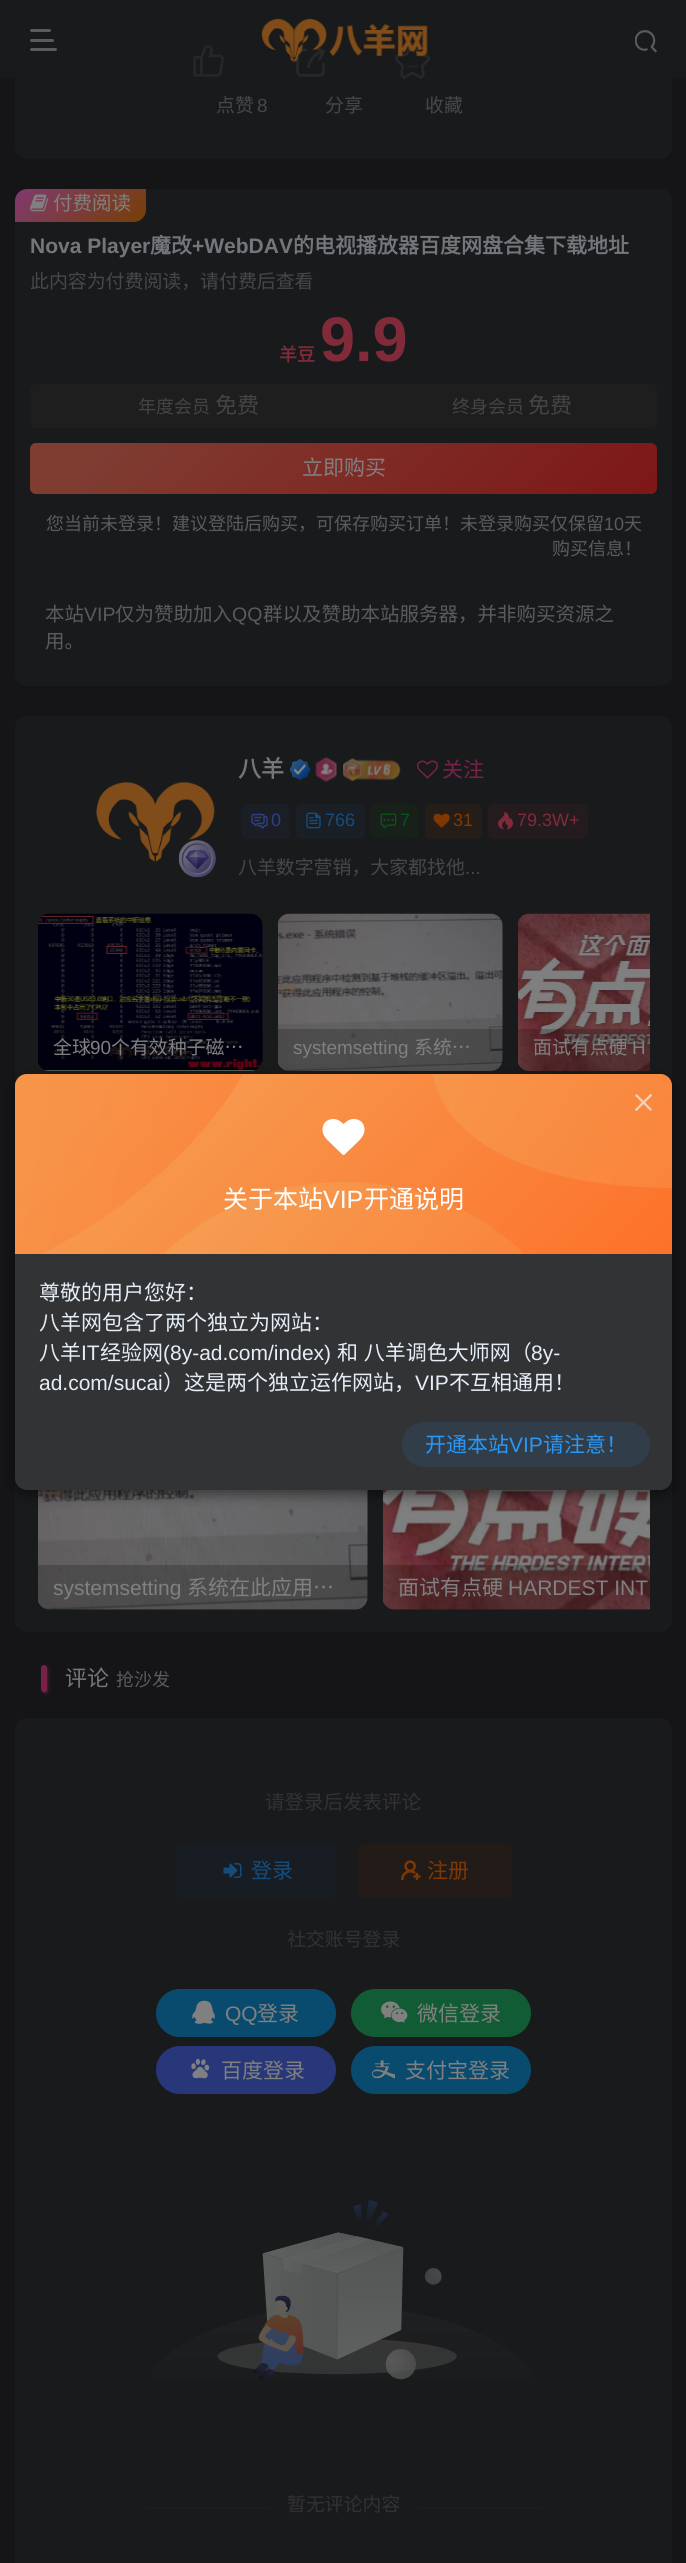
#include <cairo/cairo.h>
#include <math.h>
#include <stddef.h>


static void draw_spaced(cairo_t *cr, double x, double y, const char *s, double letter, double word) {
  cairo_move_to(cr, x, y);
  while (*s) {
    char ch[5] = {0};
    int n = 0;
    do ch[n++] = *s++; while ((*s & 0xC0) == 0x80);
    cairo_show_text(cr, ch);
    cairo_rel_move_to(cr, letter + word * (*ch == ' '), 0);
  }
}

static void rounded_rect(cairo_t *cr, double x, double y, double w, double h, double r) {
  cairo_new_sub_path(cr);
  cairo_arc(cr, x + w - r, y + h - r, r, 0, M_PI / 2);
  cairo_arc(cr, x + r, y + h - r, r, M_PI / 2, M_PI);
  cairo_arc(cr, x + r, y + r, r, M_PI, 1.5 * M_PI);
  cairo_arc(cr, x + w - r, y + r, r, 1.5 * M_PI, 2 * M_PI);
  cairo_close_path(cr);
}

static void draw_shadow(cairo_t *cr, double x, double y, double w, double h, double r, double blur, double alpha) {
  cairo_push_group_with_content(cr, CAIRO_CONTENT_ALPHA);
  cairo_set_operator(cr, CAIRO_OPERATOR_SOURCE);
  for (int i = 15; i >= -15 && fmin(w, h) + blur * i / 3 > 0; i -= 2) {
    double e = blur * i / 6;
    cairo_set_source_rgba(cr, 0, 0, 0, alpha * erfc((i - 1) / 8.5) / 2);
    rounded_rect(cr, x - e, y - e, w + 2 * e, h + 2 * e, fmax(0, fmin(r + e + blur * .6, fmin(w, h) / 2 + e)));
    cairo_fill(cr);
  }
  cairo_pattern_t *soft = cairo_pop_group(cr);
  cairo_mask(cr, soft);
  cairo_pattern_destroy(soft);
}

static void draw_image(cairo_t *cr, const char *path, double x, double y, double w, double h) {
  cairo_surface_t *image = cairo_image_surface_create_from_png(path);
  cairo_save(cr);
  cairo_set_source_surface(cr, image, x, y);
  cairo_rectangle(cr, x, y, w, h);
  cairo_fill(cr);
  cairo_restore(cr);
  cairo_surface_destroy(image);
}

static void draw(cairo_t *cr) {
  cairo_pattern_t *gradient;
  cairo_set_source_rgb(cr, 21 / 255.0, 21 / 255.0, 23 / 255.0);
  cairo_paint(cr);
  cairo_set_source_rgb(cr, 24 / 255.0, 25 / 255.0, 26 / 255.0);
  cairo_rectangle(cr, 0, 0, 686, 78);
  cairo_fill(cr);
  cairo_set_source_rgb(cr, 25 / 255.0, 26 / 255.0, 27 / 255.0);
  rounded_rect(cr, 15, -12, 657, 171, 12);
  cairo_fill(cr);
  cairo_set_source_rgb(cr, 88 / 255.0, 91 / 255.0, 95 / 255.0);
  rounded_rect(cr, 30, 29, 21, 3, 1.5);
  cairo_fill(cr);
  rounded_rect(cr, 30, 39, 24, 3, 1.5);
  cairo_fill(cr);
  rounded_rect(cr, 30, 48, 27, 3, 1.5);
  cairo_fill(cr);
  draw_image(cr, "images/4.png", 296, 46, 29, 31);
  draw_image(cr, "images/5.png", 395, 44, 35, 35);
  draw_image(cr, "images/1.png", 261, 18, 167, 45);
  draw_image(cr, "images/2.png", 635, 30, 22, 23);
  draw_image(cr, "images/3.png", 193, 44, 31, 33);
  cairo_set_source_rgb(cr, 25 / 255.0, 26 / 255.0, 27 / 255.0);
  rounded_rect(cr, 15, 189, 657, 497, 12);
  cairo_fill(cr);
  cairo_save(cr);
  rounded_rect(cr, 15, 189, 657, 497, 12);
  cairo_clip(cr);
  gradient = cairo_pattern_create_linear(39, 162, 122, 245);
  cairo_pattern_add_color_stop_rgba(gradient, 0.1, 128 / 255.0, 58 / 255.0, 103 / 255.0, 1);
  cairo_pattern_add_color_stop_rgba(gradient, 1, 118 / 255.0, 63 / 255.0, 6 / 255.0, 1);
  cairo_set_source(cr, gradient);
  cairo_pattern_destroy(gradient);
  cairo_new_path(cr);
  cairo_move_to(cr, 27, 186);
  cairo_line_to(cr, 146, 186);
  cairo_line_to(cr, 146, 210);
  cairo_curve_to(cr, 146, 216.5, 140.5, 222, 134, 222);
  cairo_line_to(cr, 15, 222);
  cairo_line_to(cr, 15, 198);
  cairo_curve_to(cr, 15, 191.5, 20.5, 186, 27, 186);
  cairo_close_path(cr);
  cairo_fill(cr);
  cairo_restore(cr);
  draw_image(cr, "images/6.png", 30, 194, 19, 18);
  cairo_set_source_rgb(cr, 30 / 255.0, 30 / 255.0, 31 / 255.0);
  cairo_new_path(cr);
  cairo_move_to(cr, 36, 384);
  cairo_line_to(cr, 344, 384);
  cairo_line_to(cr, 344, 428);
  cairo_line_to(cr, 36, 428);
  cairo_curve_to(cr, 32.5, 428, 30, 425.5, 30, 422);
  cairo_line_to(cr, 30, 390);
  cairo_curve_to(cr, 30, 386.5, 32.5, 384, 36, 384);
  cairo_close_path(cr);
  cairo_fill(cr);
  cairo_new_path(cr);
  cairo_move_to(cr, 344, 384);
  cairo_line_to(cr, 651, 384);
  cairo_curve_to(cr, 654.5, 384, 657, 386.5, 657, 390);
  cairo_line_to(cr, 657, 422);
  cairo_curve_to(cr, 657, 425.5, 654.5, 428, 651, 428);
  cairo_line_to(cr, 344, 428);
  cairo_close_path(cr);
  cairo_fill(cr);
  gradient = cairo_pattern_create_linear(174, 299, 513, 638);
  cairo_pattern_add_color_stop_rgba(gradient, 0.1, 127 / 255.0, 61 / 255.0, 50 / 255.0, 1);
  cairo_pattern_add_color_stop_rgba(gradient, 1, 126 / 255.0, 23 / 255.0, 23 / 255.0, 1);
  cairo_set_source(cr, gradient);
  cairo_pattern_destroy(gradient);
  rounded_rect(cr, 30, 443, 627, 51, 6);
  cairo_fill(cr);
  cairo_set_source_rgb(cr, 25 / 255.0, 26 / 255.0, 27 / 255.0);
  rounded_rect(cr, 15, 716, 657, 378, 12);
  cairo_fill(cr);
  draw_image(cr, "images/7.png", 96, 781, 119, 81);
  draw_image(cr, "images/8.png", 179, 840, 37, 38);
  draw_image(cr, "images/9.png", 290, 759, 21, 21);
  draw_image(cr, "images/10.png", 315, 757, 22, 25);
  draw_image(cr, "images/11.png", 343, 758, 58, 24);
  draw_image(cr, "images/12.png", 417, 760, 21, 19);
  cairo_set_source_rgb(cr, 27 / 255.0, 30 / 255.0, 37 / 255.0);
  rounded_rect(cr, 242, 804, 48, 35, 6);
  cairo_fill(cr);
  draw_image(cr, "images/13.png", 251, 813, 17, 16);
  cairo_set_source_rgb(cr, 25 / 255.0, 31 / 255.0, 36 / 255.0);
  rounded_rect(cr, 296, 804, 69, 35, 6);
  cairo_fill(cr);
  draw_image(cr, "images/14.png", 306, 812, 15, 17);
  cairo_set_source_rgb(cr, 24 / 255.0, 32 / 255.0, 26 / 255.0);
  rounded_rect(cr, 371, 804, 48, 35, 6);
  cairo_fill(cr);
  draw_image(cr, "images/15.png", 380, 813, 17, 16);
  cairo_set_source_rgb(cr, 36 / 255.0, 29 / 255.0, 24 / 255.0);
  rounded_rect(cr, 425, 804, 57, 35, 6);
  cairo_fill(cr);
  draw_image(cr, "images/16.png", 433, 813, 17, 15);
  cairo_set_source_rgb(cr, 36 / 255.0, 27 / 255.0, 30 / 255.0);
  rounded_rect(cr, 488, 804, 100, 35, 6);
  cairo_fill(cr);
  draw_image(cr, "images/17.png", 498, 812, 15, 18);
  draw_image(cr, "images/18.png", 38, 913, 225, 158);
  cairo_set_source_rgba(cr, 0, 0, 0, 0.2);
  cairo_new_path(cr);
  cairo_move_to(cr, 38, 1029);
  cairo_line_to(cr, 263, 1029);
  cairo_line_to(cr, 263, 1059);
  cairo_curve_to(cr, 263, 1065.5, 257.5, 1071, 251, 1071);
  cairo_line_to(cr, 50, 1071);
  cairo_curve_to(cr, 43.5, 1071, 38, 1065.5, 38, 1059);
  cairo_close_path(cr);
  cairo_fill(cr);
  draw_image(cr, "images/19.png", 278, 913, 225, 158);
  cairo_new_path(cr);
  cairo_move_to(cr, 278, 1029);
  cairo_line_to(cr, 503, 1029);
  cairo_line_to(cr, 503, 1059);
  cairo_curve_to(cr, 503, 1065.5, 497.5, 1071, 491, 1071);
  cairo_line_to(cr, 290, 1071);
  cairo_curve_to(cr, 283.5, 1071, 278, 1065.5, 278, 1059);
  cairo_close_path(cr);
  cairo_fill(cr);
  draw_image(cr, "images/20.png", 518, 913, 132, 158);
  cairo_new_path(cr);
  cairo_move_to(cr, 518, 1029);
  cairo_line_to(cr, 650, 1029);
  cairo_line_to(cr, 650, 1071);
  cairo_line_to(cr, 530, 1071);
  cairo_curve_to(cr, 523.5, 1071, 518, 1065.5, 518, 1059);
  cairo_close_path(cr);
  cairo_fill(cr);
  cairo_set_source_rgb(cr, 25 / 255.0, 26 / 255.0, 27 / 255.0);
  rounded_rect(cr, 15, 1356, 657, 276, 12);
  cairo_fill(cr);
  draw_image(cr, "images/21.png", 38, 1490, 330, 120);
  cairo_set_source_rgba(cr, 0, 0, 0, 0.2);
  cairo_new_path(cr);
  cairo_move_to(cr, 38, 1565);
  cairo_line_to(cr, 368, 1565);
  cairo_line_to(cr, 368, 1598);
  cairo_curve_to(cr, 368, 1604.5, 362.5, 1610, 356, 1610);
  cairo_line_to(cr, 50, 1610);
  cairo_curve_to(cr, 43.5, 1610, 38, 1604.5, 38, 1598);
  cairo_close_path(cr);
  cairo_fill(cr);
  draw_image(cr, "images/22.png", 383, 1490, 267, 120);
  cairo_new_path(cr);
  cairo_move_to(cr, 383, 1565);
  cairo_line_to(cr, 650, 1565);
  cairo_line_to(cr, 650, 1610);
  cairo_line_to(cr, 395, 1610);
  cairo_curve_to(cr, 388.5, 1610, 383, 1604.5, 383, 1598);
  cairo_close_path(cr);
  cairo_fill(cr);
  cairo_set_source_rgb(cr, 120 / 255.0, 34 / 255.0, 74 / 255.0);
  draw_shadow(cr, 44, 1668, 3, 24, 1.5, 2, 1);
  cairo_set_source_rgb(cr, 120 / 255.0, 34 / 255.0, 74 / 255.0);
  rounded_rect(cr, 41, 1665, 6, 27, 3);
  cairo_fill(cr);
  cairo_set_source_rgb(cr, 25 / 255.0, 26 / 255.0, 27 / 255.0);
  rounded_rect(cr, 15, 1718, 657, 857, 12);
  cairo_fill(cr);
  cairo_set_source_rgb(cr, 23 / 255.0, 29 / 255.0, 35 / 255.0);
  rounded_rect(cr, 176, 1844, 160, 54, 6);
  cairo_fill(cr);
  draw_image(cr, "images/23.png", 223, 1863, 19, 15);
  cairo_set_source_rgb(cr, 34 / 255.0, 27 / 255.0, 23 / 255.0);
  rounded_rect(cr, 357, 1844, 155, 54, 6);
  cairo_fill(cr);
  draw_image(cr, "images/24.png", 401, 1860, 20, 21);
  cairo_set_source_rgb(cr, 9 / 255.0, 75 / 255.0, 110 / 255.0);
  rounded_rect(cr, 156, 1989, 180, 48, 24);
  cairo_fill(cr);
  draw_image(cr, "images/25.png", 192, 2000, 23, 24);
  cairo_set_source_rgb(cr, 18 / 255.0, 92 / 255.0, 53 / 255.0);
  rounded_rect(cr, 351, 1989, 180, 48, 24);
  cairo_fill(cr);
  draw_image(cr, "images/26.png", 381, 2001, 27, 22);
  cairo_set_source_rgb(cr, 39 / 255.0, 55 / 255.0, 121 / 255.0);
  rounded_rect(cr, 156, 2046, 180, 48, 24);
  cairo_fill(cr);
  draw_image(cr, "images/27.png", 191, 2058, 19, 21);
  cairo_set_source_rgb(cr, 9 / 255.0, 75 / 255.0, 110 / 255.0);
  rounded_rect(cr, 351, 2046, 180, 48, 24);
  cairo_fill(cr);
  draw_image(cr, "images/28.png", 372, 2060, 23, 19);
  draw_image(cr, "images/29.png", 151, 2200, 381, 180);
  cairo_set_source_rgb(cr, 28 / 255.0, 29 / 255.0, 30 / 255.0);
  cairo_rectangle(cr, 146, 2507, 123, 2);
  cairo_fill(cr);
  cairo_rectangle(cr, 419, 2507, 123, 2);
  cairo_fill(cr);
  cairo_set_source_rgb(cr, 0, 0, 0);
  draw_shadow(cr, 15, 1079, 657, 415, 12, 7, 0.5);
  cairo_set_source_rgb(cr, 50 / 255.0, 51 / 255.0, 53 / 255.0);
  rounded_rect(cr, 15, 1074, 657, 416, 12);
  cairo_fill(cr);
  gradient = cairo_pattern_create_linear(167, 922, 651, 1406);
  cairo_pattern_add_color_stop_rgba(gradient, 0.1, 245 / 255.0, 159 / 255.0, 84 / 255.0, 1);
  cairo_pattern_add_color_stop_rgba(gradient, 1, 1, 105 / 255.0, 34 / 255.0, 1);
  cairo_set_source(cr, gradient);
  cairo_pattern_destroy(gradient);
  cairo_new_path(cr);
  cairo_move_to(cr, 27, 1074);
  cairo_line_to(cr, 660, 1074);
  cairo_curve_to(cr, 666.5, 1074, 672, 1079.5, 672, 1086);
  cairo_line_to(cr, 672, 1254);
  cairo_line_to(cr, 15, 1254);
  cairo_line_to(cr, 15, 1086);
  cairo_curve_to(cr, 15, 1079.5, 20.5, 1074, 27, 1074);
  cairo_close_path(cr);
  cairo_fill(cr);
  gradient = cairo_pattern_create_linear(114, 1170, 574, 1629);
  cairo_pattern_add_color_stop_rgba(gradient, 0.1, 245 / 255.0, 159 / 255.0, 84 / 255.0, 1);
  cairo_pattern_add_color_stop_rgba(gradient, 1, 1, 105 / 255.0, 34 / 255.0, 1);
  cairo_set_source(cr, gradient);
  cairo_pattern_destroy(gradient);
  cairo_new_path(cr);
  cairo_move_to(cr, 344, 1182);
  cairo_curve_to(cr, 415, 1182, 480, 1210, 524, 1254);
  cairo_line_to(cr, 164, 1254);
  cairo_curve_to(cr, 208, 1210, 273, 1182, 344, 1182);
  cairo_close_path(cr);
  cairo_fill(cr);
  gradient = cairo_pattern_create_linear(-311, 1024, 330, 1149);
  cairo_pattern_add_color_stop_rgba(gradient, 0.1, 245 / 255.0, 159 / 255.0, 84 / 255.0, 0.4);
  cairo_pattern_add_color_stop_rgba(gradient, 1, 1, 105 / 255.0, 34 / 255.0, 0.4);
  cairo_set_source(cr, gradient);
  cairo_pattern_destroy(gradient);
  cairo_new_path(cr);
  cairo_move_to(cr, 27, 1074);
  cairo_line_to(cr, 243, 1074);
  cairo_curve_to(cr, 205, 1140, 143, 1194, 78, 1234);
  cairo_line_to(cr, 42, 1254);
  cairo_line_to(cr, 15, 1254);
  cairo_line_to(cr, 15, 1086);
  cairo_curve_to(cr, 15, 1079, 20, 1074, 27, 1074);
  cairo_close_path(cr);
  cairo_fill(cr);
  gradient = cairo_pattern_create_linear(449, 692, 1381, 1146);
  cairo_pattern_add_color_stop_rgba(gradient, 0.1, 245 / 255.0, 159 / 255.0, 84 / 255.0, 0.6);
  cairo_pattern_add_color_stop_rgba(gradient, 1, 1, 105 / 255.0, 34 / 255.0, 0.6);
  cairo_set_source(cr, gradient);
  cairo_pattern_destroy(gradient);
  cairo_new_path(cr);
  cairo_move_to(cr, 672, 1188);
  cairo_curve_to(cr, 592, 1188, 455, 1170, 432, 1074);
  cairo_line_to(cr, 660, 1074);
  cairo_curve_to(cr, 667, 1074, 672, 1079, 672, 1086);
  cairo_close_path(cr);
  cairo_fill(cr);
  draw_image(cr, "images/30.png", 635, 1094, 17, 17);
  draw_image(cr, "images/31.png", 322, 1119, 43, 36);
  cairo_set_source_rgb(cr, 49 / 255.0, 61 / 255.0, 72 / 255.0);
  rounded_rect(cr, 402, 1422, 248, 45, 22.5);
  cairo_fill(cr);
  cairo_select_font_face(cr, "Noto Sans CJK SC", CAIRO_FONT_SLANT_NORMAL, CAIRO_FONT_WEIGHT_NORMAL);
  cairo_set_font_size(cr, 18.9);
  cairo_set_source_rgb(cr, 69 / 255.0, 72 / 255.0, 74 / 255.0);
  cairo_move_to(cr, 216, 112);
  cairo_show_text(cr, "点赞");
  cairo_select_font_face(cr, "Liberation Sans", CAIRO_FONT_SLANT_NORMAL, CAIRO_FONT_WEIGHT_NORMAL);
  cairo_move_to(cr, 257, 112);
  cairo_show_text(cr, "8");
  cairo_select_font_face(cr, "Noto Sans CJK SC", CAIRO_FONT_SLANT_NORMAL, CAIRO_FONT_WEIGHT_NORMAL);
  cairo_move_to(cr, 325, 112);
  cairo_show_text(cr, "分享");
  cairo_move_to(cr, 425, 112);
  cairo_show_text(cr, "收藏");
  cairo_set_font_size(cr, 19.5);
  cairo_set_source_rgb(cr, 128 / 255.0, 128 / 255.0, 128 / 255.0);
  cairo_move_to(cr, 53, 210);
  cairo_show_text(cr, "付费阅读");
  cairo_select_font_face(cr, "Liberation Sans", CAIRO_FONT_SLANT_NORMAL, CAIRO_FONT_WEIGHT_BOLD);
  cairo_set_font_size(cr, 21);
  cairo_set_source_rgb(cr, 115 / 255.0, 119 / 255.0, 124 / 255.0);
  cairo_move_to(cr, 30, 253);
  cairo_show_text(cr, "Nova Player");
  cairo_select_font_face(cr, "Noto Sans CJK SC", CAIRO_FONT_SLANT_NORMAL, CAIRO_FONT_WEIGHT_BOLD);
  cairo_move_to(cr, 150, 253);
  cairo_show_text(cr, "魔改");
  cairo_select_font_face(cr, "Liberation Sans", CAIRO_FONT_SLANT_NORMAL, CAIRO_FONT_WEIGHT_BOLD);
  cairo_move_to(cr, 192, 253);
  cairo_show_text(cr, "+WebDAV");
  cairo_select_font_face(cr, "Noto Sans CJK SC", CAIRO_FONT_SLANT_NORMAL, CAIRO_FONT_WEIGHT_BOLD);
  cairo_move_to(cr, 293, 253);
  cairo_show_text(cr, "的电视播放器百度网盘合集下载地址");
  cairo_select_font_face(cr, "Noto Sans CJK SC", CAIRO_FONT_SLANT_NORMAL, CAIRO_FONT_WEIGHT_NORMAL);
  cairo_set_font_size(cr, 18.9);
  cairo_set_source_rgb(cr, 69 / 255.0, 72 / 255.0, 74 / 255.0);
  cairo_move_to(cr, 30, 288);
  cairo_show_text(cr, "此内容为付费阅读，请付费后查看");
  cairo_select_font_face(cr, "Noto Sans CJK SC", CAIRO_FONT_SLANT_NORMAL, CAIRO_FONT_WEIGHT_BOLD);
  cairo_set_font_size(cr, 18);
  cairo_set_source_rgb(cr, 128 / 255.0, 42 / 255.0, 58 / 255.0);
  cairo_move_to(cr, 279, 361);
  cairo_show_text(cr, "羊豆");
  cairo_select_font_face(cr, "Liberation Sans", CAIRO_FONT_SLANT_NORMAL, CAIRO_FONT_WEIGHT_BOLD);
  cairo_set_font_size(cr, 63);
  cairo_move_to(cr, 320, 361);
  cairo_show_text(cr, "9.9");
  cairo_select_font_face(cr, "Noto Sans CJK SC", CAIRO_FONT_SLANT_NORMAL, CAIRO_FONT_WEIGHT_NORMAL);
  cairo_set_font_size(cr, 18);
  cairo_set_source_rgb(cr, 68 / 255.0, 68 / 255.0, 68 / 255.0);
  cairo_move_to(cr, 138, 413);
  cairo_show_text(cr, "年度会员");
  cairo_set_font_size(cr, 22);
  cairo_move_to(cr, 215, 413);
  cairo_show_text(cr, "免费");
  cairo_set_font_size(cr, 18);
  cairo_move_to(cr, 452, 413);
  cairo_show_text(cr, "终身会员");
  cairo_set_font_size(cr, 22);
  cairo_move_to(cr, 528, 413);
  cairo_show_text(cr, "免费");
  cairo_set_font_size(cr, 21);
  cairo_set_source_rgb(cr, 128 / 255.0, 128 / 255.0, 128 / 255.0);
  cairo_move_to(cr, 302, 475);
  cairo_show_text(cr, "立即购买");
  cairo_set_font_size(cr, 18);
  cairo_set_source_rgb(cr, 90 / 255.0, 91 / 255.0, 94 / 255.0);
  cairo_move_to(cr, 46, 530);
  cairo_show_text(cr, "您当前未登录！建议登陆后购买，可保存购买订单！未登录购买仅保留");
  cairo_select_font_face(cr, "Liberation Sans", CAIRO_FONT_SLANT_NORMAL, CAIRO_FONT_WEIGHT_NORMAL);
  cairo_move_to(cr, 604, 530);
  cairo_show_text(cr, "10");
  cairo_select_font_face(cr, "Noto Sans CJK SC", CAIRO_FONT_SLANT_NORMAL, CAIRO_FONT_WEIGHT_NORMAL);
  cairo_move_to(cr, 624, 530);
  cairo_show_text(cr, "天");
  cairo_move_to(cr, 552, 555);
  cairo_show_text(cr, "购买信息！");
  cairo_set_font_size(cr, 19.5);
  cairo_move_to(cr, 45, 621);
  cairo_show_text(cr, "本站");
  cairo_select_font_face(cr, "Liberation Sans", CAIRO_FONT_SLANT_NORMAL, CAIRO_FONT_WEIGHT_NORMAL);
  cairo_move_to(cr, 84, 621);
  cairo_show_text(cr, "VIP");
  cairo_select_font_face(cr, "Noto Sans CJK SC", CAIRO_FONT_SLANT_NORMAL, CAIRO_FONT_WEIGHT_NORMAL);
  cairo_move_to(cr, 115, 621);
  cairo_show_text(cr, "仅为赞助加入");
  cairo_select_font_face(cr, "Liberation Sans", CAIRO_FONT_SLANT_NORMAL, CAIRO_FONT_WEIGHT_NORMAL);
  cairo_move_to(cr, 232, 621);
  cairo_show_text(cr, "QQ");
  cairo_select_font_face(cr, "Noto Sans CJK SC", CAIRO_FONT_SLANT_NORMAL, CAIRO_FONT_WEIGHT_NORMAL);
  cairo_move_to(cr, 263, 621);
  cairo_show_text(cr, "群以及赞助本站服务器，并非购买资源之");
  cairo_move_to(cr, 45, 648);
  cairo_show_text(cr, "用。");
  cairo_select_font_face(cr, "Noto Sans CJK SC", CAIRO_FONT_SLANT_NORMAL, CAIRO_FONT_WEIGHT_BOLD);
  cairo_set_font_size(cr, 23);
  cairo_set_source_rgb(cr, 115 / 255.0, 119 / 255.0, 124 / 255.0);
  cairo_move_to(cr, 238, 777);
  cairo_show_text(cr, "八羊");
  cairo_select_font_face(cr, "Noto Sans CJK SC", CAIRO_FONT_SLANT_NORMAL, CAIRO_FONT_WEIGHT_NORMAL);
  cairo_set_font_size(cr, 21);
  cairo_set_source_rgb(cr, 120 / 255.0, 34 / 255.0, 74 / 255.0);
  cairo_move_to(cr, 442, 777);
  cairo_show_text(cr, "关注");
  cairo_select_font_face(cr, "Liberation Sans", CAIRO_FONT_SLANT_NORMAL, CAIRO_FONT_WEIGHT_NORMAL);
  cairo_set_font_size(cr, 18);
  cairo_set_source_rgb(cr, 46 / 255.0, 62 / 255.0, 128 / 255.0);
  cairo_move_to(cr, 271, 826);
  cairo_show_text(cr, "0");
  cairo_set_source_rgb(cr, 21 / 255.0, 76 / 255.0, 124 / 255.0);
  cairo_move_to(cr, 325, 826);
  cairo_show_text(cr, "766");
  cairo_set_source_rgb(cr, 12 / 255.0, 83 / 255.0, 21 / 255.0);
  cairo_move_to(cr, 400, 826);
  cairo_show_text(cr, "7");
  cairo_set_source_rgb(cr, 128 / 255.0, 56 / 255.0, 3 / 255.0);
  cairo_move_to(cr, 453, 826);
  cairo_show_text(cr, "31");
  cairo_set_source_rgb(cr, 128 / 255.0, 42 / 255.0, 58 / 255.0);
  cairo_move_to(cr, 517, 826);
  cairo_show_text(cr, "79.3W+");
  cairo_select_font_face(cr, "Noto Sans CJK SC", CAIRO_FONT_SLANT_NORMAL, CAIRO_FONT_WEIGHT_NORMAL);
  cairo_set_font_size(cr, 18.9);
  cairo_set_source_rgb(cr, 69 / 255.0, 72 / 255.0, 74 / 255.0);
  cairo_move_to(cr, 238, 874);
  cairo_show_text(cr, "八羊数字营销，大家都找他");
  cairo_select_font_face(cr, "Liberation Sans", CAIRO_FONT_SLANT_NORMAL, CAIRO_FONT_WEIGHT_NORMAL);
  cairo_move_to(cr, 465, 874);
  cairo_show_text(cr, "...");
  cairo_select_font_face(cr, "Noto Sans CJK SC", CAIRO_FONT_SLANT_NORMAL, CAIRO_FONT_WEIGHT_NORMAL);
  cairo_set_source_rgb(cr, 128 / 255.0, 128 / 255.0, 128 / 255.0);
  cairo_move_to(cr, 53, 1054);
  cairo_show_text(cr, "全球");
  cairo_select_font_face(cr, "Liberation Sans", CAIRO_FONT_SLANT_NORMAL, CAIRO_FONT_WEIGHT_NORMAL);
  cairo_move_to(cr, 90, 1054);
  cairo_show_text(cr, "90");
  cairo_select_font_face(cr, "Noto Sans CJK SC", CAIRO_FONT_SLANT_NORMAL, CAIRO_FONT_WEIGHT_NORMAL);
  cairo_move_to(cr, 111, 1054);
  cairo_show_text(cr, "个有效种子磁…");
  cairo_select_font_face(cr, "Liberation Sans", CAIRO_FONT_SLANT_NORMAL, CAIRO_FONT_WEIGHT_NORMAL);
  cairo_move_to(cr, 293, 1054);
  cairo_show_text(cr, "systemsetting");
  cairo_select_font_face(cr, "Noto Sans CJK SC", CAIRO_FONT_SLANT_NORMAL, CAIRO_FONT_WEIGHT_NORMAL);
  cairo_move_to(cr, 414, 1054);
  cairo_show_text(cr, "系统…");
  cairo_move_to(cr, 533, 1054);
  cairo_show_text(cr, "面试有点硬");
  cairo_select_font_face(cr, "Liberation Sans", CAIRO_FONT_SLANT_NORMAL, CAIRO_FONT_WEIGHT_NORMAL);
  cairo_move_to(cr, 632, 1054);
  cairo_show_text(cr, "H");
  cairo_set_font_size(cr, 21);
  cairo_move_to(cr, 53, 1595);
  cairo_show_text(cr, "systemsetting");
  cairo_select_font_face(cr, "Noto Sans CJK SC", CAIRO_FONT_SLANT_NORMAL, CAIRO_FONT_WEIGHT_NORMAL);
  cairo_move_to(cr, 187, 1595);
  cairo_show_text(cr, "系统在此应用…");
  cairo_move_to(cr, 398, 1595);
  cairo_show_text(cr, "面试有点硬");
  cairo_select_font_face(cr, "Liberation Sans", CAIRO_FONT_SLANT_NORMAL, CAIRO_FONT_WEIGHT_NORMAL);
  cairo_move_to(cr, 508, 1595);
  cairo_show_text(cr, "HARDEST INT");
  cairo_select_font_face(cr, "Noto Sans CJK SC", CAIRO_FONT_SLANT_NORMAL, CAIRO_FONT_WEIGHT_NORMAL);
  cairo_set_font_size(cr, 22);
  cairo_set_source_rgb(cr, 115 / 255.0, 119 / 255.0, 124 / 255.0);
  cairo_move_to(cr, 65, 1686);
  cairo_show_text(cr, "评论");
  cairo_set_font_size(cr, 18);
  cairo_set_source_rgb(cr, 90 / 255.0, 91 / 255.0, 94 / 255.0);
  cairo_move_to(cr, 116, 1686);
  cairo_show_text(cr, "抢沙发");
  cairo_set_font_size(cr, 19.5);
  cairo_set_source_rgb(cr, 50 / 255.0, 50 / 255.0, 53 / 255.0);
  cairo_move_to(cr, 265, 1809);
  cairo_show_text(cr, "请登录后发表评论");
  cairo_set_font_size(cr, 21);
  cairo_set_source_rgb(cr, 21 / 255.0, 76 / 255.0, 124 / 255.0);
  cairo_move_to(cr, 251, 1878);
  cairo_show_text(cr, "登录");
  cairo_set_source_rgb(cr, 128 / 255.0, 56 / 255.0, 3 / 255.0);
  cairo_move_to(cr, 427, 1878);
  cairo_show_text(cr, "注册");
  cairo_set_font_size(cr, 18.9);
  cairo_set_source_rgb(cr, 50 / 255.0, 50 / 255.0, 53 / 255.0);
  cairo_move_to(cr, 287, 1946);
  cairo_show_text(cr, "社交账号登录");
  cairo_select_font_face(cr, "Liberation Sans", CAIRO_FONT_SLANT_NORMAL, CAIRO_FONT_WEIGHT_NORMAL);
  cairo_set_font_size(cr, 21);
  cairo_set_source_rgb(cr, 128 / 255.0, 128 / 255.0, 128 / 255.0);
  cairo_move_to(cr, 225, 2021);
  cairo_show_text(cr, "QQ");
  cairo_select_font_face(cr, "Noto Sans CJK SC", CAIRO_FONT_SLANT_NORMAL, CAIRO_FONT_WEIGHT_NORMAL);
  cairo_move_to(cr, 257, 2021);
  cairo_show_text(cr, "登录");
  cairo_move_to(cr, 417, 2021);
  cairo_show_text(cr, "微信登录");
  cairo_move_to(cr, 221, 2078);
  cairo_show_text(cr, "百度登录");
  cairo_move_to(cr, 405, 2078);
  cairo_show_text(cr, "支付宝登录");
  cairo_set_font_size(cr, 18.9);
  cairo_set_source_rgb(cr, 50 / 255.0, 50 / 255.0, 53 / 255.0);
  cairo_move_to(cr, 287, 2511);
  cairo_show_text(cr, "暂无评论内容");
  cairo_set_font_size(cr, 25);
  cairo_set_source_rgb(cr, 1, 1, 1);
  cairo_move_to(cr, 223, 1208);
  cairo_show_text(cr, "关于本站");
  cairo_select_font_face(cr, "Liberation Sans", CAIRO_FONT_SLANT_NORMAL, CAIRO_FONT_WEIGHT_NORMAL);
  cairo_move_to(cr, 323, 1208);
  cairo_show_text(cr, "VIP");
  cairo_select_font_face(cr, "Noto Sans CJK SC", CAIRO_FONT_SLANT_NORMAL, CAIRO_FONT_WEIGHT_NORMAL);
  cairo_move_to(cr, 364, 1208);
  cairo_show_text(cr, "开通说明");
  cairo_set_font_size(cr, 21);
  cairo_set_source_rgb(cr, 229 / 255.0, 238 / 255.0, 247 / 255.0);
  cairo_move_to(cr, 39, 1300);
  cairo_show_text(cr, "尊敬的用户您好：");
  cairo_move_to(cr, 39, 1330);
  cairo_show_text(cr, "八羊网包含了两个独立为网站：");
  cairo_move_to(cr, 39, 1360);
  cairo_show_text(cr, "八羊");
  cairo_select_font_face(cr, "Liberation Sans", CAIRO_FONT_SLANT_NORMAL, CAIRO_FONT_WEIGHT_NORMAL);
  cairo_move_to(cr, 81, 1360);
  cairo_show_text(cr, "IT");
  cairo_select_font_face(cr, "Noto Sans CJK SC", CAIRO_FONT_SLANT_NORMAL, CAIRO_FONT_WEIGHT_NORMAL);
  cairo_move_to(cr, 100, 1360);
  cairo_show_text(cr, "经验网");
  cairo_select_font_face(cr, "Liberation Sans", CAIRO_FONT_SLANT_NORMAL, CAIRO_FONT_WEIGHT_NORMAL);
  cairo_move_to(cr, 163, 1360);
  cairo_show_text(cr, "(8y-ad.com/index)");
  cairo_select_font_face(cr, "Noto Sans CJK SC", CAIRO_FONT_SLANT_NORMAL, CAIRO_FONT_WEIGHT_NORMAL);
  draw_spaced(cr, 337, 1360, "和 八羊调色大师网（", 0, 1);
  cairo_select_font_face(cr, "Liberation Sans", CAIRO_FONT_SLANT_NORMAL, CAIRO_FONT_WEIGHT_NORMAL);
  cairo_move_to(cr, 531, 1360);
  cairo_show_text(cr, "8y-");
  cairo_move_to(cr, 39, 1390);
  cairo_show_text(cr, "ad.com/sucai");
  cairo_select_font_face(cr, "Noto Sans CJK SC", CAIRO_FONT_SLANT_NORMAL, CAIRO_FONT_WEIGHT_NORMAL);
  cairo_move_to(cr, 163, 1390);
  cairo_show_text(cr, "）这是两个独立运作网站，");
  cairo_select_font_face(cr, "Liberation Sans", CAIRO_FONT_SLANT_NORMAL, CAIRO_FONT_WEIGHT_NORMAL);
  cairo_move_to(cr, 415, 1390);
  cairo_show_text(cr, "VIP");
  cairo_select_font_face(cr, "Noto Sans CJK SC", CAIRO_FONT_SLANT_NORMAL, CAIRO_FONT_WEIGHT_NORMAL);
  cairo_move_to(cr, 449, 1390);
  cairo_show_text(cr, "不互相通用！");
  cairo_set_source_rgb(cr, 41 / 255.0, 151 / 255.0, 247 / 255.0);
  cairo_move_to(cr, 425, 1452);
  cairo_show_text(cr, "开通本站");
  cairo_select_font_face(cr, "Liberation Sans", CAIRO_FONT_SLANT_NORMAL, CAIRO_FONT_WEIGHT_NORMAL);
  cairo_move_to(cr, 509, 1452);
  cairo_show_text(cr, "VIP");
  cairo_select_font_face(cr, "Noto Sans CJK SC", CAIRO_FONT_SLANT_NORMAL, CAIRO_FONT_WEIGHT_NORMAL);
  cairo_move_to(cr, 543, 1452);
  cairo_show_text(cr, "请注意！");
}

int main(void) {
  cairo_surface_t *surface = cairo_image_surface_create(CAIRO_FORMAT_RGB24, 686, 2563);
  cairo_t *cr = cairo_create(surface);
  cairo_font_options_t *options = cairo_font_options_create();
  cairo_font_options_set_hint_metrics(options, CAIRO_HINT_METRICS_OFF);
  cairo_font_options_set_hint_style(options, CAIRO_HINT_STYLE_NONE);
  cairo_set_font_options(cr, options);
  cairo_set_miter_limit(cr, 4);
  draw(cr);
  cairo_surface_write_to_png(surface, "out.png");
  cairo_font_options_destroy(options);
  cairo_destroy(cr);
  cairo_surface_destroy(surface);
  return 0;
}
